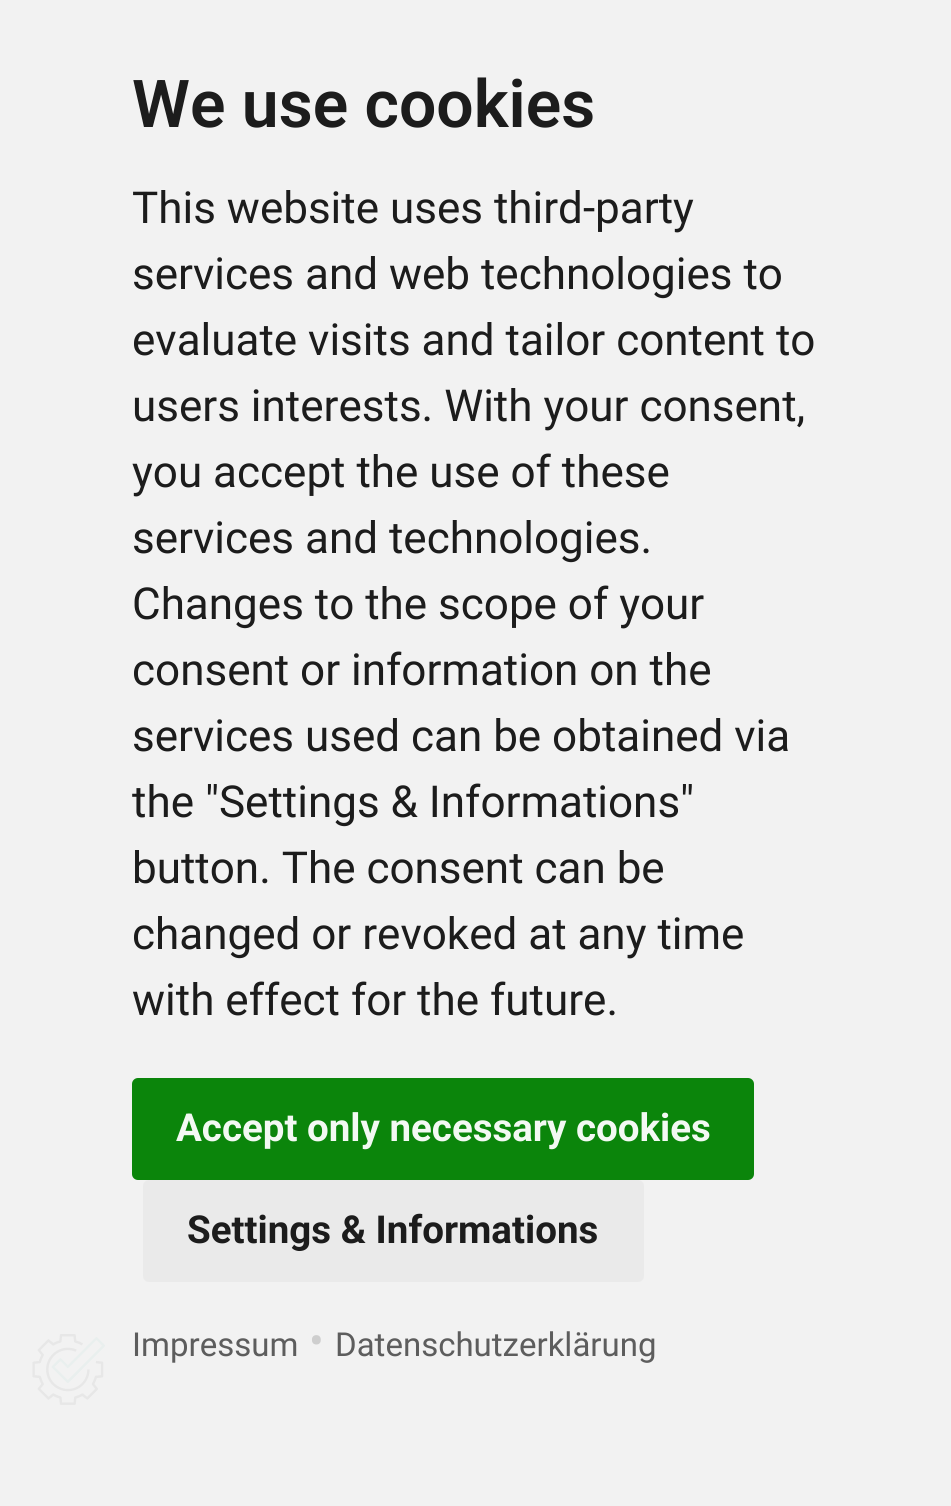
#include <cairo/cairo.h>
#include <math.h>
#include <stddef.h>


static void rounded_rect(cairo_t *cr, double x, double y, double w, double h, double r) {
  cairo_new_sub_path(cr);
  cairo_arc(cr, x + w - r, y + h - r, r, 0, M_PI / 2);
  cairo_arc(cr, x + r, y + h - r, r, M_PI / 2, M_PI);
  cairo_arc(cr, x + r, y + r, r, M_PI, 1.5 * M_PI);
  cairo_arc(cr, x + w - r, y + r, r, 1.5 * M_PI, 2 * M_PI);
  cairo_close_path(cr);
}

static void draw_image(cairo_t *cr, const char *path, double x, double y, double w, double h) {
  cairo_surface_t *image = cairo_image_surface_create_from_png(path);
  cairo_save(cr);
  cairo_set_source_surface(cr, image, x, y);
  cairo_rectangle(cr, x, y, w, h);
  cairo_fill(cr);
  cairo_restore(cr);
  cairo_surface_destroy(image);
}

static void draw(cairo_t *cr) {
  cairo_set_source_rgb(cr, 242 / 255.0, 242 / 255.0, 242 / 255.0);
  cairo_paint(cr);
  draw_image(cr, "images/1.png", 32, 1334, 73, 71);
  cairo_set_source_rgba(cr, 0, 128 / 255.0, 0, 0.95);
  rounded_rect(cr, 132, 1078, 622, 102, 6);
  cairo_fill(cr);
  cairo_set_source_rgba(cr, 234 / 255.0, 234 / 255.0, 234 / 255.0, 0.95);
  rounded_rect(cr, 143, 1180, 501, 102, 6);
  cairo_fill(cr);
  cairo_select_font_face(cr, "Roboto SemiBold", CAIRO_FONT_SLANT_NORMAL, CAIRO_FONT_WEIGHT_NORMAL);
  cairo_set_font_size(cr, 66);
  cairo_set_source_rgb(cr, 28 / 255.0, 28 / 255.0, 28 / 255.0);
  cairo_move_to(cr, 132, 127);
  cairo_show_text(cr, "We use cookies");
  cairo_select_font_face(cr, "Roboto", CAIRO_FONT_SLANT_NORMAL, CAIRO_FONT_WEIGHT_NORMAL);
  cairo_set_font_size(cr, 44);
  cairo_move_to(cr, 132, 223);
  cairo_show_text(cr, "This website uses third-party");
  cairo_move_to(cr, 132, 289);
  cairo_show_text(cr, "services and web technologies to");
  cairo_move_to(cr, 132, 355);
  cairo_show_text(cr, "evaluate visits and tailor content to");
  cairo_move_to(cr, 132, 421);
  cairo_show_text(cr, "users interests. With your consent,");
  cairo_move_to(cr, 132, 487);
  cairo_show_text(cr, "you accept the use of these");
  cairo_move_to(cr, 132, 553);
  cairo_show_text(cr, "services and technologies.");
  cairo_move_to(cr, 132, 619);
  cairo_show_text(cr, "Changes to the scope of your");
  cairo_move_to(cr, 132, 685);
  cairo_show_text(cr, "consent or information on the");
  cairo_move_to(cr, 132, 751);
  cairo_show_text(cr, "services used can be obtained via");
  cairo_move_to(cr, 132, 817);
  cairo_show_text(cr, "the \"Settings & Informations\"");
  cairo_move_to(cr, 132, 883);
  cairo_show_text(cr, "button. The consent can be");
  cairo_move_to(cr, 132, 949);
  cairo_show_text(cr, "changed or revoked at any time");
  cairo_move_to(cr, 132, 1015);
  cairo_show_text(cr, "with effect for the future.");
  cairo_select_font_face(cr, "Roboto", CAIRO_FONT_SLANT_NORMAL, CAIRO_FONT_WEIGHT_BOLD);
  cairo_set_font_size(cr, 38.5);
  cairo_set_source_rgb(cr, 243 / 255.0, 249 / 255.0, 243 / 255.0);
  cairo_move_to(cr, 176, 1141);
  cairo_show_text(cr, "Accept only necessary cookies");
  cairo_set_source_rgb(cr, 28 / 255.0, 28 / 255.0, 28 / 255.0);
  cairo_move_to(cr, 187, 1243);
  cairo_show_text(cr, "Settings & Informations");
  cairo_select_font_face(cr, "Roboto", CAIRO_FONT_SLANT_NORMAL, CAIRO_FONT_WEIGHT_NORMAL);
  cairo_set_font_size(cr, 33);
  cairo_set_source_rgb(cr, 93 / 255.0, 93 / 255.0, 93 / 255.0);
  cairo_move_to(cr, 132, 1356);
  cairo_show_text(cr, "Impressum");
  cairo_set_font_size(cr, 44);
  cairo_set_source_rgb(cr, 206 / 255.0, 206 / 255.0, 206 / 255.0);
  cairo_move_to(cr, 309, 1356);
  cairo_show_text(cr, "•");
  cairo_set_font_size(cr, 33);
  cairo_set_source_rgb(cr, 93 / 255.0, 93 / 255.0, 93 / 255.0);
  cairo_move_to(cr, 335, 1356);
  cairo_show_text(cr, "Datenschutzerklärung");
}

int main(void) {
  cairo_surface_t *surface = cairo_image_surface_create(CAIRO_FORMAT_RGB24, 951, 1506);
  cairo_t *cr = cairo_create(surface);
  cairo_font_options_t *options = cairo_font_options_create();
  cairo_font_options_set_hint_metrics(options, CAIRO_HINT_METRICS_OFF);
  cairo_font_options_set_hint_style(options, CAIRO_HINT_STYLE_NONE);
  cairo_set_font_options(cr, options);
  cairo_set_miter_limit(cr, 4);
  draw(cr);
  cairo_surface_write_to_png(surface, "out.png");
  cairo_font_options_destroy(options);
  cairo_destroy(cr);
  cairo_surface_destroy(surface);
  return 0;
}
